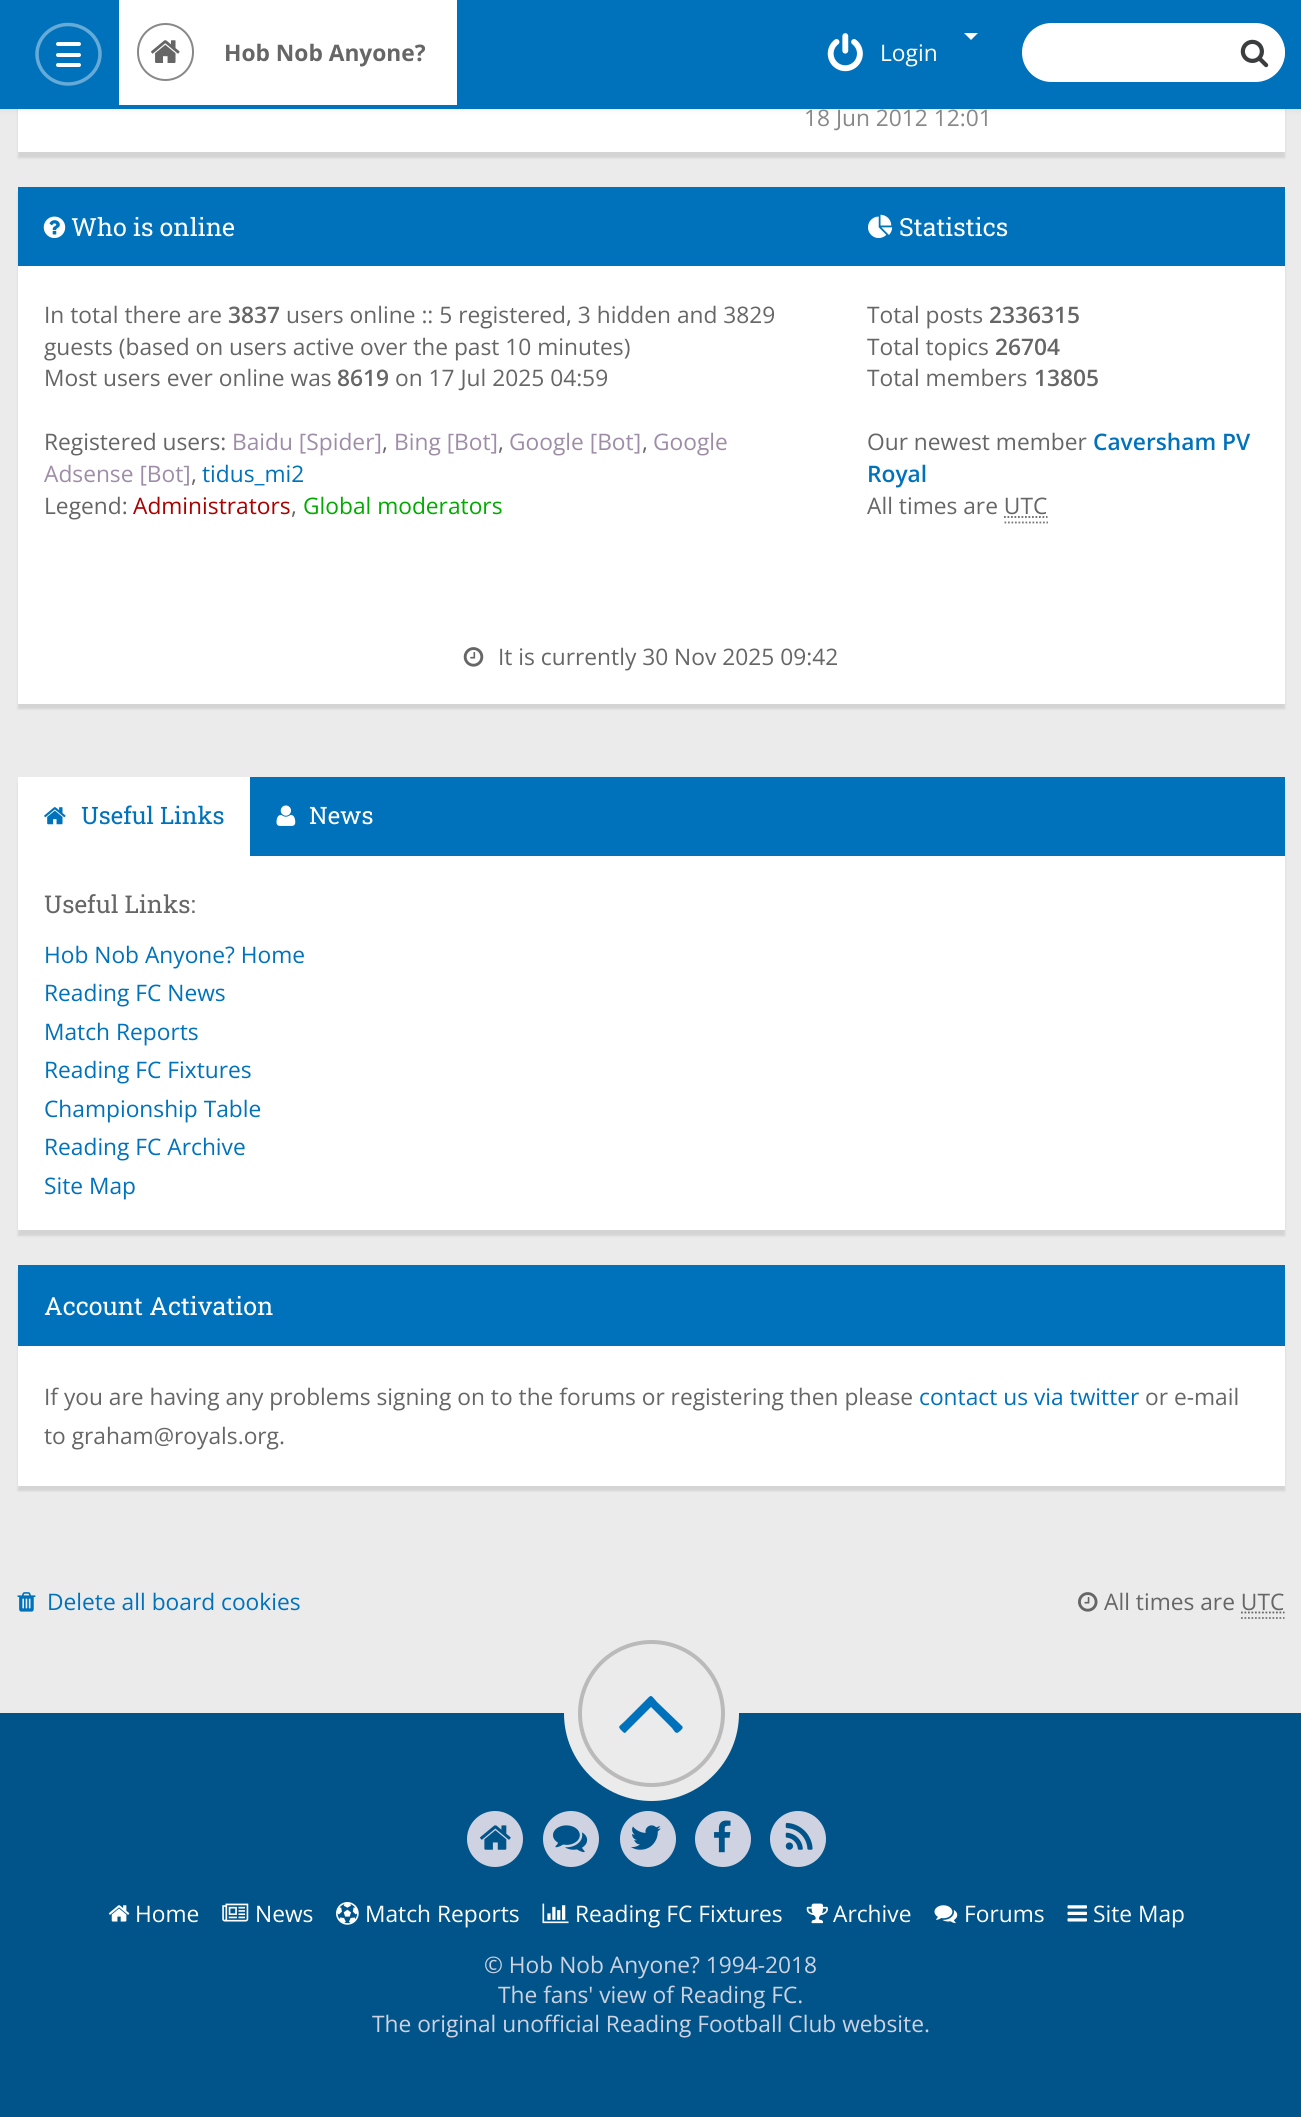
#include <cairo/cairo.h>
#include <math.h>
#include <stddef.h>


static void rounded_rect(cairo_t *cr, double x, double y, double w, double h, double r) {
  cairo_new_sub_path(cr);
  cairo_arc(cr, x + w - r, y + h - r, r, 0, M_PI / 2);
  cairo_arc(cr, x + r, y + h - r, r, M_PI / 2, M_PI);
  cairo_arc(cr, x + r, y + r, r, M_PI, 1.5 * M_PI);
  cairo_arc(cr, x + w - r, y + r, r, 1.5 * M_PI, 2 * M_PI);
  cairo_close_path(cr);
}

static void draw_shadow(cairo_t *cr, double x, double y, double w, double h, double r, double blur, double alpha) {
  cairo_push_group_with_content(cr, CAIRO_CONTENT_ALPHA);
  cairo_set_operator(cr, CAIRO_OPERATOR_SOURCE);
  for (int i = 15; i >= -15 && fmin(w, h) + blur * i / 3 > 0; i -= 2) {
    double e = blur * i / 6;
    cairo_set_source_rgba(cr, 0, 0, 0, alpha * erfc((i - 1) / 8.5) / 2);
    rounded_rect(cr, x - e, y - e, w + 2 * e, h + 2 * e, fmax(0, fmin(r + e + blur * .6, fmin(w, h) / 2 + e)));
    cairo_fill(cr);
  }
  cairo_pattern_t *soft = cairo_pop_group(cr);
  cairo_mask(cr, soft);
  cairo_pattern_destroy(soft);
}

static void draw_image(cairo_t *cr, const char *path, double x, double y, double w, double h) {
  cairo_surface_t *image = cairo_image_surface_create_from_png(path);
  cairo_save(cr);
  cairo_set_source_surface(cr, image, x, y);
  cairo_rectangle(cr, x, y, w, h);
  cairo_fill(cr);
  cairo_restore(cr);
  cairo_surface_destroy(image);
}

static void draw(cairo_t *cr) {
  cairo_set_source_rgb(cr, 235 / 255.0, 235 / 255.0, 235 / 255.0);
  cairo_paint(cr);
  cairo_set_source_rgb(cr, 0, 0, 0);
  draw_shadow(cr, 18, -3, 1267, 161, 0, 1, 0.1);
  cairo_set_source_rgb(cr, 1, 1, 1);
  cairo_rectangle(cr, 18, 109, 1267, 43);
  cairo_fill(cr);
  cairo_set_source_rgb(cr, 3 / 255.0, 2 / 255.0, 2 / 255.0);
  draw_shadow(cr, 0, 0, 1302, 105, 0, 4.5, 0.25);
  cairo_set_source_rgb(cr, 0, 114 / 255.0, 188 / 255.0);
  cairo_rectangle(cr, 0, 0, 1301, 109);
  cairo_fill(cr);
  cairo_new_path(cr);
  cairo_move_to(cr, 68, 24.5);
  cairo_curve_to(cr, 85.5, 24.5, 100, 38, 100, 54);
  cairo_curve_to(cr, 100, 70.5, 85.5, 84, 68, 84);
  cairo_curve_to(cr, 51, 84, 37, 70.5, 37, 54);
  cairo_curve_to(cr, 37, 38, 51, 24.5, 68, 24.5);
  cairo_close_path(cr);
  cairo_set_source_rgb(cr, 102 / 255.0, 170 / 255.0, 215 / 255.0);
  cairo_set_line_width(cr, 3.5);
  cairo_stroke(cr);
  cairo_set_source_rgb(cr, 1, 1, 1);
  rounded_rect(cr, 56, 42, 25, 4, 2);
  cairo_fill(cr);
  rounded_rect(cr, 56, 53, 25, 4, 2);
  cairo_fill(cr);
  rounded_rect(cr, 56, 63, 25, 4, 2);
  cairo_fill(cr);
  cairo_rectangle(cr, 119, 0, 338, 105);
  cairo_fill(cr);
  rounded_rect(cr, 138, 24, 55, 56, 27.5);
  cairo_set_source_rgb(cr, 136 / 255.0, 136 / 255.0, 136 / 255.0);
  cairo_set_line_width(cr, 2);
  cairo_stroke(cr);
  draw_image(cr, "images/1.png", 151, 40, 29, 23);
  draw_image(cr, "images/2.png", 827, 33, 36, 39);
  cairo_set_source_rgb(cr, 1, 1, 1);
  cairo_new_path(cr);
  cairo_move_to(cr, 964, 33);
  cairo_line_to(cr, 978, 33);
  cairo_line_to(cr, 971, 40);
  cairo_close_path(cr);
  cairo_fill(cr);
  cairo_new_path(cr);
  cairo_move_to(cr, 1255, 26);
  cairo_curve_to(cr, 1270, 26, 1283, 38, 1283, 52.5);
  cairo_curve_to(cr, 1283, 67, 1270, 79, 1255, 79);
  cairo_curve_to(cr, 1239.5, 79, 1227, 67, 1227, 52.5);
  cairo_curve_to(cr, 1227, 38, 1239.5, 26, 1255, 26);
  cairo_close_path(cr);
  cairo_set_line_width(cr, 3.5);
  cairo_stroke(cr);
  rounded_rect(cr, 1022, 23, 263, 59, 29.5);
  cairo_fill(cr);
  draw_image(cr, "images/3.png", 1240, 39, 29, 29);
  cairo_set_source_rgb(cr, 0, 0, 0);
  draw_shadow(cr, 18, 193, 1267, 516, 0, 1, 0.1);
  cairo_set_source_rgb(cr, 1, 1, 1);
  cairo_rectangle(cr, 18, 266, 1267, 438);
  cairo_fill(cr);
  cairo_set_source_rgb(cr, 0, 114 / 255.0, 188 / 255.0);
  cairo_rectangle(cr, 18, 187, 1267, 79);
  cairo_fill(cr);
  draw_image(cr, "images/4.png", 43, 216, 23, 22);
  draw_image(cr, "images/5.png", 868, 214, 25, 24);
  cairo_new_path(cr);
  cairo_move_to(cr, 1004, 517);
  cairo_line_to(cr, 1047.5, 517);
  cairo_set_source_rgb(cr, 102 / 255.0, 102 / 255.0, 102 / 255.0);
  cairo_set_line_width(cr, 1.8);
  cairo_set_dash(cr, (double[]){1.75, 1.75}, 2, 0);
  cairo_stroke(cr);
  cairo_new_path(cr);
  cairo_move_to(cr, 1004.5, 522.5);
  cairo_line_to(cr, 1048, 522.5);
  cairo_set_source_rgb(cr, 119 / 255.0, 119 / 255.0, 119 / 255.0);
  cairo_stroke(cr);
  draw_image(cr, "images/6.png", 463, 647, 21, 20);
  cairo_set_source_rgb(cr, 0, 0, 0);
  draw_shadow(cr, 18, 782, 1267, 454, 0, 1, 0.1);
  cairo_set_source_rgb(cr, 0, 114 / 255.0, 188 / 255.0);
  cairo_rectangle(cr, 250, 777, 1035, 79);
  cairo_fill(cr);
  cairo_set_source_rgb(cr, 1, 1, 1);
  cairo_rectangle(cr, 18, 777, 232, 79);
  cairo_fill(cr);
  draw_image(cr, "images/7.png", 44, 807, 22, 18);
  draw_image(cr, "images/8.png", 276, 805, 20, 21);
  cairo_rectangle(cr, 18, 856, 1267, 374);
  cairo_fill(cr);
  cairo_set_source_rgb(cr, 0, 0, 0);
  draw_shadow(cr, 18, 1271, 1267, 220, 0, 1, 0.1);
  cairo_set_source_rgb(cr, 0, 114 / 255.0, 188 / 255.0);
  cairo_rectangle(cr, 18, 1265, 1267, 81);
  cairo_fill(cr);
  cairo_set_source_rgb(cr, 1, 1, 1);
  cairo_rectangle(cr, 18, 1346, 1267, 140);
  cairo_fill(cr);
  draw_image(cr, "images/9.png", 17, 1592, 19, 20);
  draw_image(cr, "images/10.png", 1078, 1592, 20, 20);
  cairo_new_path(cr);
  cairo_move_to(cr, 1241, 1612.5);
  cairo_line_to(cr, 1284.5, 1612.5);
  cairo_set_source_rgb(cr, 102 / 255.0, 102 / 255.0, 102 / 255.0);
  cairo_stroke(cr);
  cairo_new_path(cr);
  cairo_move_to(cr, 1241, 1618);
  cairo_line_to(cr, 1284.5, 1618);
  cairo_set_source_rgb(cr, 119 / 255.0, 119 / 255.0, 119 / 255.0);
  cairo_stroke(cr);
  cairo_set_source_rgb(cr, 0, 84 / 255.0, 138 / 255.0);
  cairo_rectangle(cr, 0, 1713, 1301, 404);
  cairo_fill(cr);
  cairo_set_source_rgb(cr, 235 / 255.0, 235 / 255.0, 235 / 255.0);
  cairo_arc(cr, 651.5, 1713.5, 87.5, 0, 2 * M_PI);
  cairo_fill(cr);
  cairo_set_source_rgb(cr, 0, 114 / 255.0, 188 / 255.0);
  cairo_new_path(cr);
  cairo_move_to(cr, 682, 1726);
  cairo_curve_to(cr, 684, 1728, 681, 1730, 680, 1731);
  cairo_curve_to(cr, 676, 1735, 675, 1732, 672, 1728);
  cairo_line_to(cr, 651, 1707);
  cairo_line_to(cr, 625, 1733);
  cairo_curve_to(cr, 624, 1733, 623, 1732, 622, 1731);
  cairo_curve_to(cr, 617, 1726, 619, 1727, 625, 1721);
  cairo_line_to(cr, 644, 1702);
  cairo_curve_to(cr, 652, 1694, 650, 1694, 657, 1702);
  cairo_close_path(cr);
  cairo_fill(cr);
  cairo_arc(cr, 651.5, 1713.5, 71.5, 0, 2 * M_PI);
  cairo_set_source_rgb(cr, 186 / 255.0, 186 / 255.0, 186 / 255.0);
  cairo_set_line_width(cr, 4);
  cairo_set_dash(cr, NULL, 0, 0);
  cairo_stroke(cr);
  cairo_set_source_rgb(cr, 206 / 255.0, 210 / 255.0, 225 / 255.0);
  cairo_arc(cr, 495, 1839, 28, 0, 2 * M_PI);
  cairo_fill(cr);
  draw_image(cr, "images/11.png", 480, 1825, 31, 25);
  cairo_arc(cr, 571, 1839, 28, 0, 2 * M_PI);
  cairo_fill(cr);
  draw_image(cr, "images/12.png", 553, 1825, 35, 28);
  cairo_arc(cr, 648, 1839, 28, 0, 2 * M_PI);
  cairo_fill(cr);
  draw_image(cr, "images/13.png", 631, 1825, 30, 25);
  cairo_arc(cr, 723, 1839, 28, 0, 2 * M_PI);
  cairo_fill(cr);
  draw_image(cr, "images/14.png", 714, 1820, 17, 33);
  cairo_arc(cr, 798, 1839, 28, 0, 2 * M_PI);
  cairo_fill(cr);
  draw_image(cr, "images/15.png", 785, 1822, 28, 28);
  draw_image(cr, "images/16.png", 108, 1905, 22, 17);
  draw_image(cr, "images/17.png", 222, 1903, 27, 19);
  draw_image(cr, "images/18.png", 336, 1902, 23, 23);
  draw_image(cr, "images/19.png", 542, 1903, 27, 21);
  draw_image(cr, "images/20.png", 806, 1903, 22, 21);
  draw_image(cr, "images/21.png", 934, 1905, 24, 19);
  draw_image(cr, "images/22.png", 1067, 1905, 20, 17);
  cairo_select_font_face(cr, "Open Sans", CAIRO_FONT_SLANT_NORMAL, CAIRO_FONT_WEIGHT_BOLD);
  cairo_set_font_size(cr, 22.75);
  cairo_set_source_rgb(cr, 102 / 255.0, 102 / 255.0, 102 / 255.0);
  cairo_move_to(cr, 224, 61);
  cairo_show_text(cr, "Hob Nob Anyone?");
  cairo_select_font_face(cr, "Open Sans", CAIRO_FONT_SLANT_NORMAL, CAIRO_FONT_WEIGHT_NORMAL);
  cairo_set_source_rgb(cr, 1, 1, 1);
  cairo_move_to(cr, 880, 61);
  cairo_show_text(cr, "Login");
  cairo_set_source_rgb(cr, 136 / 255.0, 136 / 255.0, 136 / 255.0);
  cairo_move_to(cr, 804, 126);
  cairo_show_text(cr, "18 Jun 2012 12:01");
  cairo_select_font_face(cr, "Roboto Slab", CAIRO_FONT_SLANT_NORMAL, CAIRO_FONT_WEIGHT_NORMAL);
  cairo_set_font_size(cr, 25);
  cairo_set_source_rgb(cr, 1, 1, 1);
  cairo_move_to(cr, 71, 236);
  cairo_show_text(cr, "Who is online");
  cairo_select_font_face(cr, "Open Sans", CAIRO_FONT_SLANT_NORMAL, CAIRO_FONT_WEIGHT_NORMAL);
  cairo_set_font_size(cr, 22.75);
  cairo_set_source_rgb(cr, 102 / 255.0, 102 / 255.0, 102 / 255.0);
  cairo_move_to(cr, 44, 323);
  cairo_show_text(cr, "In total there are");
  cairo_select_font_face(cr, "Open Sans SemiBold", CAIRO_FONT_SLANT_NORMAL, CAIRO_FONT_WEIGHT_NORMAL);
  cairo_move_to(cr, 228, 323);
  cairo_show_text(cr, "3837");
  cairo_select_font_face(cr, "Open Sans", CAIRO_FONT_SLANT_NORMAL, CAIRO_FONT_WEIGHT_NORMAL);
  cairo_move_to(cr, 286, 323);
  cairo_show_text(cr, "users online :: 5 registered, 3 hidden and 3829");
  cairo_move_to(cr, 44, 355);
  cairo_show_text(cr, "guests (based on users active over the past 10 minutes)");
  cairo_move_to(cr, 44, 386);
  cairo_show_text(cr, "Most users ever online was");
  cairo_select_font_face(cr, "Open Sans SemiBold", CAIRO_FONT_SLANT_NORMAL, CAIRO_FONT_WEIGHT_NORMAL);
  cairo_move_to(cr, 337, 386);
  cairo_show_text(cr, "8619");
  cairo_select_font_face(cr, "Open Sans", CAIRO_FONT_SLANT_NORMAL, CAIRO_FONT_WEIGHT_NORMAL);
  cairo_move_to(cr, 395, 386);
  cairo_show_text(cr, "on 17 Jul 2025 04:59");
  cairo_move_to(cr, 44, 450);
  cairo_show_text(cr, "Registered users:");
  cairo_set_source_rgb(cr, 158 / 255.0, 141 / 255.0, 167 / 255.0);
  cairo_move_to(cr, 232, 450);
  cairo_show_text(cr, "Baidu [Spider]");
  cairo_set_source_rgb(cr, 102 / 255.0, 102 / 255.0, 102 / 255.0);
  cairo_move_to(cr, 382, 450);
  cairo_show_text(cr, ",");
  cairo_set_source_rgb(cr, 158 / 255.0, 141 / 255.0, 167 / 255.0);
  cairo_move_to(cr, 394, 450);
  cairo_show_text(cr, "Bing [Bot]");
  cairo_set_source_rgb(cr, 102 / 255.0, 102 / 255.0, 102 / 255.0);
  cairo_move_to(cr, 498, 450);
  cairo_show_text(cr, ",");
  cairo_set_source_rgb(cr, 158 / 255.0, 141 / 255.0, 167 / 255.0);
  cairo_move_to(cr, 509, 450);
  cairo_show_text(cr, "Google [Bot]");
  cairo_set_source_rgb(cr, 102 / 255.0, 102 / 255.0, 102 / 255.0);
  cairo_move_to(cr, 642, 450);
  cairo_show_text(cr, ",");
  cairo_set_source_rgb(cr, 158 / 255.0, 141 / 255.0, 167 / 255.0);
  cairo_move_to(cr, 653, 450);
  cairo_show_text(cr, "Google");
  cairo_move_to(cr, 44, 482);
  cairo_show_text(cr, "Adsense [Bot]");
  cairo_set_source_rgb(cr, 102 / 255.0, 102 / 255.0, 102 / 255.0);
  cairo_move_to(cr, 191, 482);
  cairo_show_text(cr, ",");
  cairo_set_source_rgb(cr, 0, 114 / 255.0, 188 / 255.0);
  cairo_move_to(cr, 202, 482);
  cairo_show_text(cr, "tidus_mi2");
  cairo_set_source_rgb(cr, 102 / 255.0, 102 / 255.0, 102 / 255.0);
  cairo_move_to(cr, 44, 514);
  cairo_show_text(cr, "Legend:");
  cairo_set_source_rgb(cr, 170 / 255.0, 0, 0);
  cairo_move_to(cr, 133, 514);
  cairo_show_text(cr, "Administrators");
  cairo_set_source_rgb(cr, 102 / 255.0, 102 / 255.0, 102 / 255.0);
  cairo_move_to(cr, 291, 514);
  cairo_show_text(cr, ",");
  cairo_set_source_rgb(cr, 0, 170 / 255.0, 0);
  cairo_move_to(cr, 303, 514);
  cairo_show_text(cr, "Global moderators");
  cairo_select_font_face(cr, "Roboto Slab", CAIRO_FONT_SLANT_NORMAL, CAIRO_FONT_WEIGHT_NORMAL);
  cairo_set_font_size(cr, 25);
  cairo_set_source_rgb(cr, 1, 1, 1);
  cairo_move_to(cr, 899, 236);
  cairo_show_text(cr, "Statistics");
  cairo_select_font_face(cr, "Open Sans", CAIRO_FONT_SLANT_NORMAL, CAIRO_FONT_WEIGHT_NORMAL);
  cairo_set_font_size(cr, 22.75);
  cairo_set_source_rgb(cr, 102 / 255.0, 102 / 255.0, 102 / 255.0);
  cairo_move_to(cr, 867, 323);
  cairo_show_text(cr, "Total posts");
  cairo_select_font_face(cr, "Open Sans SemiBold", CAIRO_FONT_SLANT_NORMAL, CAIRO_FONT_WEIGHT_NORMAL);
  cairo_move_to(cr, 989, 323);
  cairo_show_text(cr, "2336315");
  cairo_select_font_face(cr, "Open Sans", CAIRO_FONT_SLANT_NORMAL, CAIRO_FONT_WEIGHT_NORMAL);
  cairo_move_to(cr, 867, 355);
  cairo_show_text(cr, "Total topics");
  cairo_select_font_face(cr, "Open Sans SemiBold", CAIRO_FONT_SLANT_NORMAL, CAIRO_FONT_WEIGHT_NORMAL);
  cairo_move_to(cr, 995, 355);
  cairo_show_text(cr, "26704");
  cairo_select_font_face(cr, "Open Sans", CAIRO_FONT_SLANT_NORMAL, CAIRO_FONT_WEIGHT_NORMAL);
  cairo_move_to(cr, 867, 386);
  cairo_show_text(cr, "Total members");
  cairo_select_font_face(cr, "Open Sans SemiBold", CAIRO_FONT_SLANT_NORMAL, CAIRO_FONT_WEIGHT_NORMAL);
  cairo_move_to(cr, 1034, 386);
  cairo_show_text(cr, "13805");
  cairo_select_font_face(cr, "Open Sans", CAIRO_FONT_SLANT_NORMAL, CAIRO_FONT_WEIGHT_NORMAL);
  cairo_move_to(cr, 867, 450);
  cairo_show_text(cr, "Our newest member");
  cairo_select_font_face(cr, "Open Sans SemiBold", CAIRO_FONT_SLANT_NORMAL, CAIRO_FONT_WEIGHT_NORMAL);
  cairo_set_source_rgb(cr, 0, 114 / 255.0, 188 / 255.0);
  cairo_move_to(cr, 1093, 450);
  cairo_show_text(cr, "Caversham PV");
  cairo_move_to(cr, 867, 482);
  cairo_show_text(cr, "Royal");
  cairo_select_font_face(cr, "Open Sans", CAIRO_FONT_SLANT_NORMAL, CAIRO_FONT_WEIGHT_NORMAL);
  cairo_set_source_rgb(cr, 102 / 255.0, 102 / 255.0, 102 / 255.0);
  cairo_move_to(cr, 867, 514);
  cairo_show_text(cr, "All times are UTC");
  cairo_move_to(cr, 498, 665);
  cairo_show_text(cr, "It is currently 30 Nov 2025 09:42");
  cairo_select_font_face(cr, "Roboto Slab", CAIRO_FONT_SLANT_NORMAL, CAIRO_FONT_WEIGHT_NORMAL);
  cairo_set_font_size(cr, 24);
  cairo_set_source_rgb(cr, 0, 114 / 255.0, 188 / 255.0);
  cairo_move_to(cr, 81, 824);
  cairo_show_text(cr, "Useful Links");
  cairo_set_source_rgb(cr, 1, 1, 1);
  cairo_move_to(cr, 309, 824);
  cairo_show_text(cr, "News");
  cairo_set_font_size(cr, 24.5);
  cairo_set_source_rgb(cr, 102 / 255.0, 102 / 255.0, 102 / 255.0);
  cairo_move_to(cr, 44, 913);
  cairo_show_text(cr, "Useful Links:");
  cairo_select_font_face(cr, "Open Sans", CAIRO_FONT_SLANT_NORMAL, CAIRO_FONT_WEIGHT_NORMAL);
  cairo_set_font_size(cr, 22.75);
  cairo_set_source_rgb(cr, 0, 114 / 255.0, 188 / 255.0);
  cairo_move_to(cr, 44, 963);
  cairo_show_text(cr, "Hob Nob Anyone? Home");
  cairo_move_to(cr, 44, 1001);
  cairo_show_text(cr, "Reading FC News");
  cairo_move_to(cr, 44, 1040);
  cairo_show_text(cr, "Match Reports");
  cairo_move_to(cr, 44, 1078);
  cairo_show_text(cr, "Reading FC Fixtures");
  cairo_move_to(cr, 44, 1117);
  cairo_show_text(cr, "Championship Table");
  cairo_move_to(cr, 44, 1155);
  cairo_show_text(cr, "Reading FC Archive");
  cairo_move_to(cr, 44, 1194);
  cairo_show_text(cr, "Site Map");
  cairo_select_font_face(cr, "Roboto Slab", CAIRO_FONT_SLANT_NORMAL, CAIRO_FONT_WEIGHT_NORMAL);
  cairo_set_font_size(cr, 25);
  cairo_set_source_rgb(cr, 1, 1, 1);
  cairo_move_to(cr, 44, 1315);
  cairo_show_text(cr, "Account Activation");
  cairo_select_font_face(cr, "Open Sans", CAIRO_FONT_SLANT_NORMAL, CAIRO_FONT_WEIGHT_NORMAL);
  cairo_set_font_size(cr, 22.75);
  cairo_set_source_rgb(cr, 102 / 255.0, 102 / 255.0, 102 / 255.0);
  cairo_move_to(cr, 44, 1405);
  cairo_show_text(cr, "If you are having any problems signing on to the forums or registering then please");
  cairo_set_source_rgb(cr, 0, 114 / 255.0, 188 / 255.0);
  cairo_move_to(cr, 919, 1405);
  cairo_show_text(cr, "contact us via twitter");
  cairo_set_source_rgb(cr, 102 / 255.0, 102 / 255.0, 102 / 255.0);
  cairo_move_to(cr, 1145, 1405);
  cairo_show_text(cr, "or e-mail");
  cairo_move_to(cr, 44, 1444);
  cairo_show_text(cr, "to graham@royals.org.");
  cairo_set_source_rgb(cr, 0, 114 / 255.0, 188 / 255.0);
  cairo_move_to(cr, 47, 1610);
  cairo_show_text(cr, "Delete all board cookies");
  cairo_set_source_rgb(cr, 102 / 255.0, 102 / 255.0, 102 / 255.0);
  cairo_move_to(cr, 1104, 1610);
  cairo_show_text(cr, "All times are UTC");
  cairo_set_source_rgb(cr, 1, 1, 1);
  cairo_move_to(cr, 135, 1922);
  cairo_show_text(cr, "Home");
  cairo_move_to(cr, 255, 1922);
  cairo_show_text(cr, "News");
  cairo_move_to(cr, 365, 1922);
  cairo_show_text(cr, "Match Reports");
  cairo_move_to(cr, 575, 1922);
  cairo_show_text(cr, "Reading FC Fixtures");
  cairo_move_to(cr, 833, 1922);
  cairo_show_text(cr, "Archive");
  cairo_move_to(cr, 964, 1922);
  cairo_show_text(cr, "Forums");
  cairo_move_to(cr, 1093, 1922);
  cairo_show_text(cr, "Site Map");
  cairo_set_source_rgb(cr, 206 / 255.0, 210 / 255.0, 225 / 255.0);
  cairo_move_to(cr, 484, 1973);
  cairo_show_text(cr, "© Hob Nob Anyone? 1994-2018");
  cairo_move_to(cr, 498, 2003);
  cairo_show_text(cr, "The fans' view of Reading FC.");
  cairo_move_to(cr, 372, 2032);
  cairo_show_text(cr, "The original unofficial Reading Football Club website.");
}

int main(void) {
  cairo_surface_t *surface = cairo_image_surface_create(CAIRO_FORMAT_RGB24, 1301, 2117);
  cairo_t *cr = cairo_create(surface);
  cairo_font_options_t *options = cairo_font_options_create();
  cairo_font_options_set_hint_metrics(options, CAIRO_HINT_METRICS_OFF);
  cairo_font_options_set_hint_style(options, CAIRO_HINT_STYLE_NONE);
  cairo_set_font_options(cr, options);
  cairo_set_miter_limit(cr, 4);
  draw(cr);
  cairo_surface_write_to_png(surface, "out.png");
  cairo_font_options_destroy(options);
  cairo_destroy(cr);
  cairo_surface_destroy(surface);
  return 0;
}
